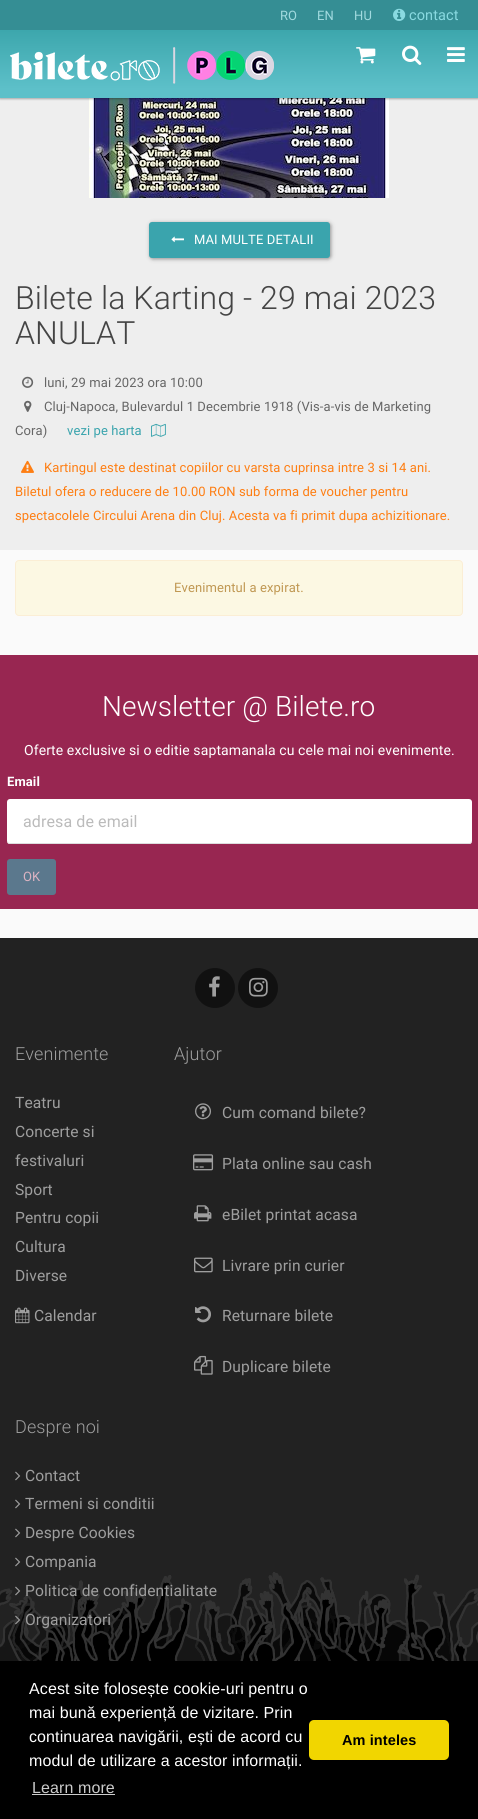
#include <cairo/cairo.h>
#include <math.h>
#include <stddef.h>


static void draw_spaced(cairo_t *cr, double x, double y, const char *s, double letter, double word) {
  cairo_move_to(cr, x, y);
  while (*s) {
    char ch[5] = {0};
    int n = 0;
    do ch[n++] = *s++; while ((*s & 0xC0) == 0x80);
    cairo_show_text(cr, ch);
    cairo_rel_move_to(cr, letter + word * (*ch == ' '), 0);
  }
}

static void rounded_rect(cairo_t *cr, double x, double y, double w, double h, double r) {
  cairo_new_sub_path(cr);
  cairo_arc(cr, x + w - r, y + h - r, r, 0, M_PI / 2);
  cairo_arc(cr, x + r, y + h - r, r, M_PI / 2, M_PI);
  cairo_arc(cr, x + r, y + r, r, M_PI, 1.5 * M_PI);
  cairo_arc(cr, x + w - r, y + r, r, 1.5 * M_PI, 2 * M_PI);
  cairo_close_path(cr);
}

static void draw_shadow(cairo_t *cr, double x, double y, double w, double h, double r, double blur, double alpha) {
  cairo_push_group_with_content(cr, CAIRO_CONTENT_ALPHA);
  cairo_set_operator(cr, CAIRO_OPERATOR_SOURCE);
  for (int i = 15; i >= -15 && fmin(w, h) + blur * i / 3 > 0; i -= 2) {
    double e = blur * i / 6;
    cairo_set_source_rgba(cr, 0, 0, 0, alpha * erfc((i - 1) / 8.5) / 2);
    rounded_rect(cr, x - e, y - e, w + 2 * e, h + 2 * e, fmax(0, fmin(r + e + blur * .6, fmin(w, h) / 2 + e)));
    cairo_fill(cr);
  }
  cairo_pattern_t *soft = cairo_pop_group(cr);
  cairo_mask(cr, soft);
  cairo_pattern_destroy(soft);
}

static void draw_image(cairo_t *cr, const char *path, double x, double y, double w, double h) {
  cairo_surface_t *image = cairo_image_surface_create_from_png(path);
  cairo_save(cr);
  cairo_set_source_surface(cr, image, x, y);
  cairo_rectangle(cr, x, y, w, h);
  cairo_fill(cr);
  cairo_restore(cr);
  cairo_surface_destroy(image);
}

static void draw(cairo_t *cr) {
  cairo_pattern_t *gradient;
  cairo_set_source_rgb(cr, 250 / 255.0, 250 / 255.0, 250 / 255.0);
  cairo_paint(cr);
  cairo_set_source_rgb(cr, 238 / 255.0, 238 / 255.0, 238 / 255.0);
  cairo_rectangle(cr, 0, 98, 478, 452);
  cairo_fill(cr);
  draw_image(cr, "images/6.png", 89, 98, 300, 100);
  cairo_set_source_rgb(cr, 0, 0, 0);
  draw_shadow(cr, 0, 1, 478, 98, 0, 1, 0.3);
  cairo_set_source_rgb(cr, 53 / 255.0, 142 / 255.0, 148 / 255.0);
  cairo_rectangle(cr, 0, 0, 478, 30);
  cairo_fill(cr);
  draw_image(cr, "images/1.png", 393, 8, 13, 13);
  gradient = cairo_pattern_create_linear(239, 30, 239, 98);
  cairo_pattern_add_color_stop_rgba(gradient, 0.01, 61 / 255.0, 167 / 255.0, 173 / 255.0, 1);
  cairo_pattern_add_color_stop_rgba(gradient, 0.87, 93 / 255.0, 192 / 255.0, 201 / 255.0, 1);
  cairo_pattern_add_color_stop_rgba(gradient, 1, 93 / 255.0, 192 / 255.0, 201 / 255.0, 1);
  cairo_set_source(cr, gradient);
  cairo_pattern_destroy(gradient);
  cairo_rectangle(cr, 0, 30, 478, 68);
  cairo_fill(cr);
  draw_image(cr, "images/2.png", 10, 47, 264, 37);
  draw_image(cr, "images/3.png", 356, 47, 20, 17);
  draw_image(cr, "images/4.png", 402, 45, 20, 20);
  draw_image(cr, "images/5.png", 447, 47, 18, 15);
  cairo_set_source_rgb(cr, 0, 0, 0);
  draw_shadow(cr, 150, 223, 181, 36, 3, 2, 0.4);
  cairo_set_source_rgb(cr, 58 / 255.0, 164 / 255.0, 173 / 255.0);
  rounded_rect(cr, 149, 222, 181, 36, 3);
  cairo_fill(cr);
  draw_image(cr, "images/7.png", 171, 236, 13, 7);
  draw_image(cr, "images/8.png", 22, 376, 12, 12);
  draw_image(cr, "images/9.png", 24, 400, 8, 12);
  draw_image(cr, "images/10.png", 151, 423, 15, 14);
  draw_image(cr, "images/11.png", 21, 460, 13, 13);
  cairo_set_source_rgb(cr, 252 / 255.0, 248 / 255.0, 227 / 255.0);
  rounded_rect(cr, 15.5, 560.5, 447, 55, 3.5);
  cairo_fill_preserve(cr);
  cairo_set_source_rgb(cr, 251 / 255.0, 238 / 255.0, 213 / 255.0);
  cairo_set_line_width(cr, 1);
  cairo_stroke(cr);
  cairo_set_source_rgb(cr, 152 / 255.0, 38 / 255.0, 81 / 255.0);
  cairo_rectangle(cr, 0, 655, 478, 254);
  cairo_fill(cr);
  cairo_set_source_rgb(cr, 1, 1, 1);
  rounded_rect(cr, 7, 799, 465, 45, 3);
  cairo_fill(cr);
  cairo_set_source_rgb(cr, 221 / 255.0, 221 / 255.0, 221 / 255.0);
  cairo_new_path(cr);
  cairo_move_to(cr, 7, 840);
  cairo_line_to(cr, 7, 841);
  cairo_curve_to(cr, 7, 843, 8, 844, 10, 844);
  cairo_line_to(cr, 469, 844);
  cairo_curve_to(cr, 471, 844, 472, 843, 472, 841);
  cairo_line_to(cr, 472, 840);
  cairo_curve_to(cr, 472, 842, 471, 843, 469, 843);
  cairo_line_to(cr, 10, 843);
  cairo_curve_to(cr, 8, 843, 7, 842, 7, 840);
  cairo_close_path(cr);
  cairo_fill(cr);
  cairo_set_source_rgb(cr, 91 / 255.0, 120 / 255.0, 141 / 255.0);
  rounded_rect(cr, 7, 859, 49, 36, 3);
  cairo_fill(cr);
  cairo_set_source_rgb(cr, 34 / 255.0, 34 / 255.0, 34 / 255.0);
  cairo_rectangle(cr, 0, 938, 478, 634);
  cairo_fill(cr);
  draw_image(cr, "images/12.png", 0, 1572, 478, 89);
  cairo_set_source_rgb(cr, 17 / 255.0, 17 / 255.0, 17 / 255.0);
  cairo_arc(cr, 215, 988, 20, 0, 2 * M_PI);
  cairo_fill(cr);
  draw_image(cr, "images/13.png", 209, 976, 11, 21);
  cairo_arc(cr, 258, 988, 20, 0, 2 * M_PI);
  cairo_fill(cr);
  draw_image(cr, "images/14.png", 249, 977, 19, 20);
  draw_image(cr, "images/15.png", 15, 1307, 15, 17);
  draw_image(cr, "images/16.png", 195, 1103, 16, 17);
  draw_image(cr, "images/17.png", 193, 1154, 21, 17);
  draw_image(cr, "images/18.png", 194, 1205, 18, 17);
  draw_image(cr, "images/19.png", 194, 1257, 19, 16);
  draw_image(cr, "images/20.png", 195, 1306, 16, 17);
  draw_image(cr, "images/21.png", 194, 1355, 19, 20);
  draw_image(cr, "images/22.png", 15, 1471, 6, 10);
  draw_image(cr, "images/22.png", 15, 1499, 6, 10);
  draw_image(cr, "images/22.png", 15, 1528, 6, 10);
  draw_image(cr, "images/22.png", 15, 1557, 6, 10);
  draw_image(cr, "images/22.png", 15, 1586, 6, 10);
  draw_image(cr, "images/23.png", 15, 1615, 6, 10);
  cairo_set_source_rgb(cr, 0, 0, 0);
  cairo_rectangle(cr, 0, 1661, 478, 158);
  cairo_fill(cr);
  cairo_set_source_rgb(cr, 204 / 255.0, 204 / 255.0, 204 / 255.0);
  cairo_rectangle(cr, 32, 1794, 83, 1);
  cairo_fill(cr);
  cairo_set_source_rgb(cr, 241 / 255.0, 214 / 255.0, 0);
  rounded_rect(cr, 309, 1720, 140, 40, 5);
  cairo_fill(cr);
  cairo_select_font_face(cr, "Roboto", CAIRO_FONT_SLANT_NORMAL, CAIRO_FONT_WEIGHT_NORMAL);
  cairo_set_font_size(cr, 13);
  cairo_set_source_rgb(cr, 161 / 255.0, 218 / 255.0, 223 / 255.0);
  draw_spaced(cr, 280, 20, "RO", 0.1, 0);
  draw_spaced(cr, 317, 20, "EN", 0.1, 0);
  draw_spaced(cr, 354, 20, "HU", 0.1, 0);
  cairo_set_font_size(cr, 14.5);
  cairo_set_source_rgb(cr, 137 / 255.0, 218 / 255.0, 225 / 255.0);
  draw_spaced(cr, 409, 20, "contact", 0.1, 0);
  cairo_set_font_size(cr, 13);
  cairo_set_source_rgb(cr, 1, 1, 1);
  draw_spaced(cr, 194, 244, "MAI MULTE DETALII", 0.1, 0);
  cairo_select_font_face(cr, "Roboto Light", CAIRO_FONT_SLANT_NORMAL, CAIRO_FONT_WEIGHT_NORMAL);
  cairo_set_font_size(cr, 32);
  cairo_set_source_rgb(cr, 68 / 255.0, 68 / 255.0, 68 / 255.0);
  draw_spaced(cr, 15, 309, "Bilete la Karting - 29 mai 2023", 0.1, 0);
  draw_spaced(cr, 15, 344, "ANULAT", 0.1, 0);
  cairo_select_font_face(cr, "Roboto", CAIRO_FONT_SLANT_NORMAL, CAIRO_FONT_WEIGHT_NORMAL);
  cairo_set_font_size(cr, 13);
  cairo_set_source_rgb(cr, 102 / 255.0, 102 / 255.0, 102 / 255.0);
  draw_spaced(cr, 44, 387, "luni, 29 mai 2023 ora 10:00", 0.1, 0);
  draw_spaced(cr, 44, 411, "Cluj-Napoca, Bulevardul 1 Decembrie 1918 (Vis-a-vis de Marketing", 0.1, 0);
  draw_spaced(cr, 15, 435, "Cora)", 0.1, 0);
  cairo_set_source_rgb(cr, 58 / 255.0, 164 / 255.0, 173 / 255.0);
  draw_spaced(cr, 67, 435, "vezi pe harta", 0.1, 0);
  cairo_set_source_rgb(cr, 254 / 255.0, 126 / 255.0, 19 / 255.0);
  draw_spaced(cr, 44, 472, "Kartingul este destinat copiilor cu varsta cuprinsa intre 3 si 14 ani.", 0.1, 0);
  draw_spaced(cr, 15, 496, "Biletul ofera o reducere de 10.00 RON sub forma de voucher pentru", 0.1, 0);
  draw_spaced(cr, 15, 520, "spectacolele Circului Arena din Cluj. Acesta va fi primit dupa achizitionare.", 0.1, 0);
  cairo_set_source_rgb(cr, 192 / 255.0, 152 / 255.0, 83 / 255.0);
  draw_spaced(cr, 174, 592, "Evenimentul a expirat.", 0.1, 0);
  cairo_select_font_face(cr, "Roboto Light", CAIRO_FONT_SLANT_NORMAL, CAIRO_FONT_WEIGHT_NORMAL);
  cairo_set_font_size(cr, 28);
  cairo_set_source_rgb(cr, 1, 1, 1);
  draw_spaced(cr, 102, 716, "Newsletter @ Bilete.ro", 0.1, 0);
  cairo_select_font_face(cr, "Roboto", CAIRO_FONT_SLANT_NORMAL, CAIRO_FONT_WEIGHT_NORMAL);
  cairo_set_font_size(cr, 14);
  draw_spaced(cr, 24, 755, "Oferte exclusive si o editie saptamanala cu cele mai noi evenimente.", 0.1, 0);
  cairo_select_font_face(cr, "Roboto", CAIRO_FONT_SLANT_NORMAL, CAIRO_FONT_WEIGHT_BOLD);
  cairo_set_font_size(cr, 13);
  draw_spaced(cr, 7, 786, "Email", 0.1, 0);
  cairo_select_font_face(cr, "Roboto", CAIRO_FONT_SLANT_NORMAL, CAIRO_FONT_WEIGHT_NORMAL);
  cairo_set_font_size(cr, 16);
  cairo_set_source_rgb(cr, 187 / 255.0, 187 / 255.0, 187 / 255.0);
  draw_spaced(cr, 23, 827, "adresa de email", 0.1, 0);
  cairo_set_font_size(cr, 13);
  cairo_set_source_rgb(cr, 219 / 255.0, 179 / 255.0, 194 / 255.0);
  draw_spaced(cr, 23, 881, "OK", 0.1, 0);
  cairo_select_font_face(cr, "Roboto Light", CAIRO_FONT_SLANT_NORMAL, CAIRO_FONT_WEIGHT_NORMAL);
  cairo_set_font_size(cr, 18);
  cairo_set_source_rgb(cr, 158 / 255.0, 158 / 255.0, 158 / 255.0);
  draw_spaced(cr, 15, 1060, "Evenimente", 0.1, 0);
  cairo_select_font_face(cr, "Roboto", CAIRO_FONT_SLANT_NORMAL, CAIRO_FONT_WEIGHT_NORMAL);
  cairo_set_font_size(cr, 15.6);
  draw_spaced(cr, 15, 1108, "Teatru", 0.1, 0);
  draw_spaced(cr, 15, 1137, "Concerte si", 0.1, 0);
  draw_spaced(cr, 15, 1166, "festivaluri", 0.1, 0);
  draw_spaced(cr, 15, 1195, "Sport", 0.1, 0);
  draw_spaced(cr, 15, 1223, "Pentru copii", 0.1, 0);
  draw_spaced(cr, 15, 1252, "Cultura", 0.1, 0);
  draw_spaced(cr, 15, 1281, "Diverse", 0.1, 0);
  draw_spaced(cr, 34, 1321, "Calendar", 0.1, 0);
  cairo_select_font_face(cr, "Roboto Light", CAIRO_FONT_SLANT_NORMAL, CAIRO_FONT_WEIGHT_NORMAL);
  cairo_set_font_size(cr, 18);
  draw_spaced(cr, 174, 1060, "Ajutor", 0.1, 0);
  cairo_select_font_face(cr, "Roboto", CAIRO_FONT_SLANT_NORMAL, CAIRO_FONT_WEIGHT_NORMAL);
  cairo_set_font_size(cr, 15.6);
  draw_spaced(cr, 222, 1118, "Cum comand bilete?", 0.1, 0);
  draw_spaced(cr, 222, 1169, "Plata online sau cash", 0.1, 0);
  draw_spaced(cr, 222, 1220, "eBilet printat acasa", 0.1, 0);
  draw_spaced(cr, 222, 1271, "Livrare prin curier", 0.1, 0);
  draw_spaced(cr, 222, 1321, "Returnare bilete", 0.1, 0);
  draw_spaced(cr, 222, 1372, "Duplicare bilete", 0.1, 0);
  cairo_select_font_face(cr, "Roboto Light", CAIRO_FONT_SLANT_NORMAL, CAIRO_FONT_WEIGHT_NORMAL);
  cairo_set_font_size(cr, 18);
  draw_spaced(cr, 15, 1433, "Despre noi", 0.1, 0);
  cairo_select_font_face(cr, "Roboto", CAIRO_FONT_SLANT_NORMAL, CAIRO_FONT_WEIGHT_NORMAL);
  cairo_set_font_size(cr, 15.6);
  draw_spaced(cr, 25, 1481, "Contact", 0.1, 0);
  draw_spaced(cr, 25, 1509, "Termeni si conditii", 0.1, 0);
  draw_spaced(cr, 25, 1538, "Despre Cookies", 0.1, 0);
  draw_spaced(cr, 25, 1567, "Compania", 0.1, 0);
  draw_spaced(cr, 25, 1596, "Politica de confidentialitate", 0.1, 0);
  draw_spaced(cr, 25, 1625, "Organizatori", 0.1, 0);
  cairo_select_font_face(cr, "Liberation Sans", CAIRO_FONT_SLANT_NORMAL, CAIRO_FONT_WEIGHT_NORMAL);
  cairo_set_font_size(cr, 16);
  cairo_set_source_rgb(cr, 1, 1, 1);
  draw_spaced(cr, 29, 1694, "Acest site folosește cookie-uri pentru o", 0.1, 0);
  draw_spaced(cr, 29, 1718, "mai bună experiență de vizitare. Prin", 0.1, 0);
  draw_spaced(cr, 29, 1742, "continuarea navigării, ești de acord cu", 0.1, 0);
  draw_spaced(cr, 29, 1766, "modul de utilizare a acestor informații.", 0.1, 0);
  cairo_set_source_rgb(cr, 204 / 255.0, 204 / 255.0, 204 / 255.0);
  draw_spaced(cr, 32, 1793, "Learn more", 0.1, 0);
  cairo_select_font_face(cr, "Liberation Sans", CAIRO_FONT_SLANT_NORMAL, CAIRO_FONT_WEIGHT_BOLD);
  cairo_set_font_size(cr, 14.5);
  cairo_set_source_rgb(cr, 0, 0, 0);
  draw_spaced(cr, 342, 1745, "Am inteles", 0.1, 0);
}

int main(void) {
  cairo_surface_t *surface = cairo_image_surface_create(CAIRO_FORMAT_RGB24, 478, 1819);
  cairo_t *cr = cairo_create(surface);
  cairo_font_options_t *options = cairo_font_options_create();
  cairo_font_options_set_hint_metrics(options, CAIRO_HINT_METRICS_OFF);
  cairo_font_options_set_hint_style(options, CAIRO_HINT_STYLE_NONE);
  cairo_set_font_options(cr, options);
  cairo_set_miter_limit(cr, 4);
  draw(cr);
  cairo_surface_write_to_png(surface, "out.png");
  cairo_font_options_destroy(options);
  cairo_destroy(cr);
  cairo_surface_destroy(surface);
  return 0;
}
